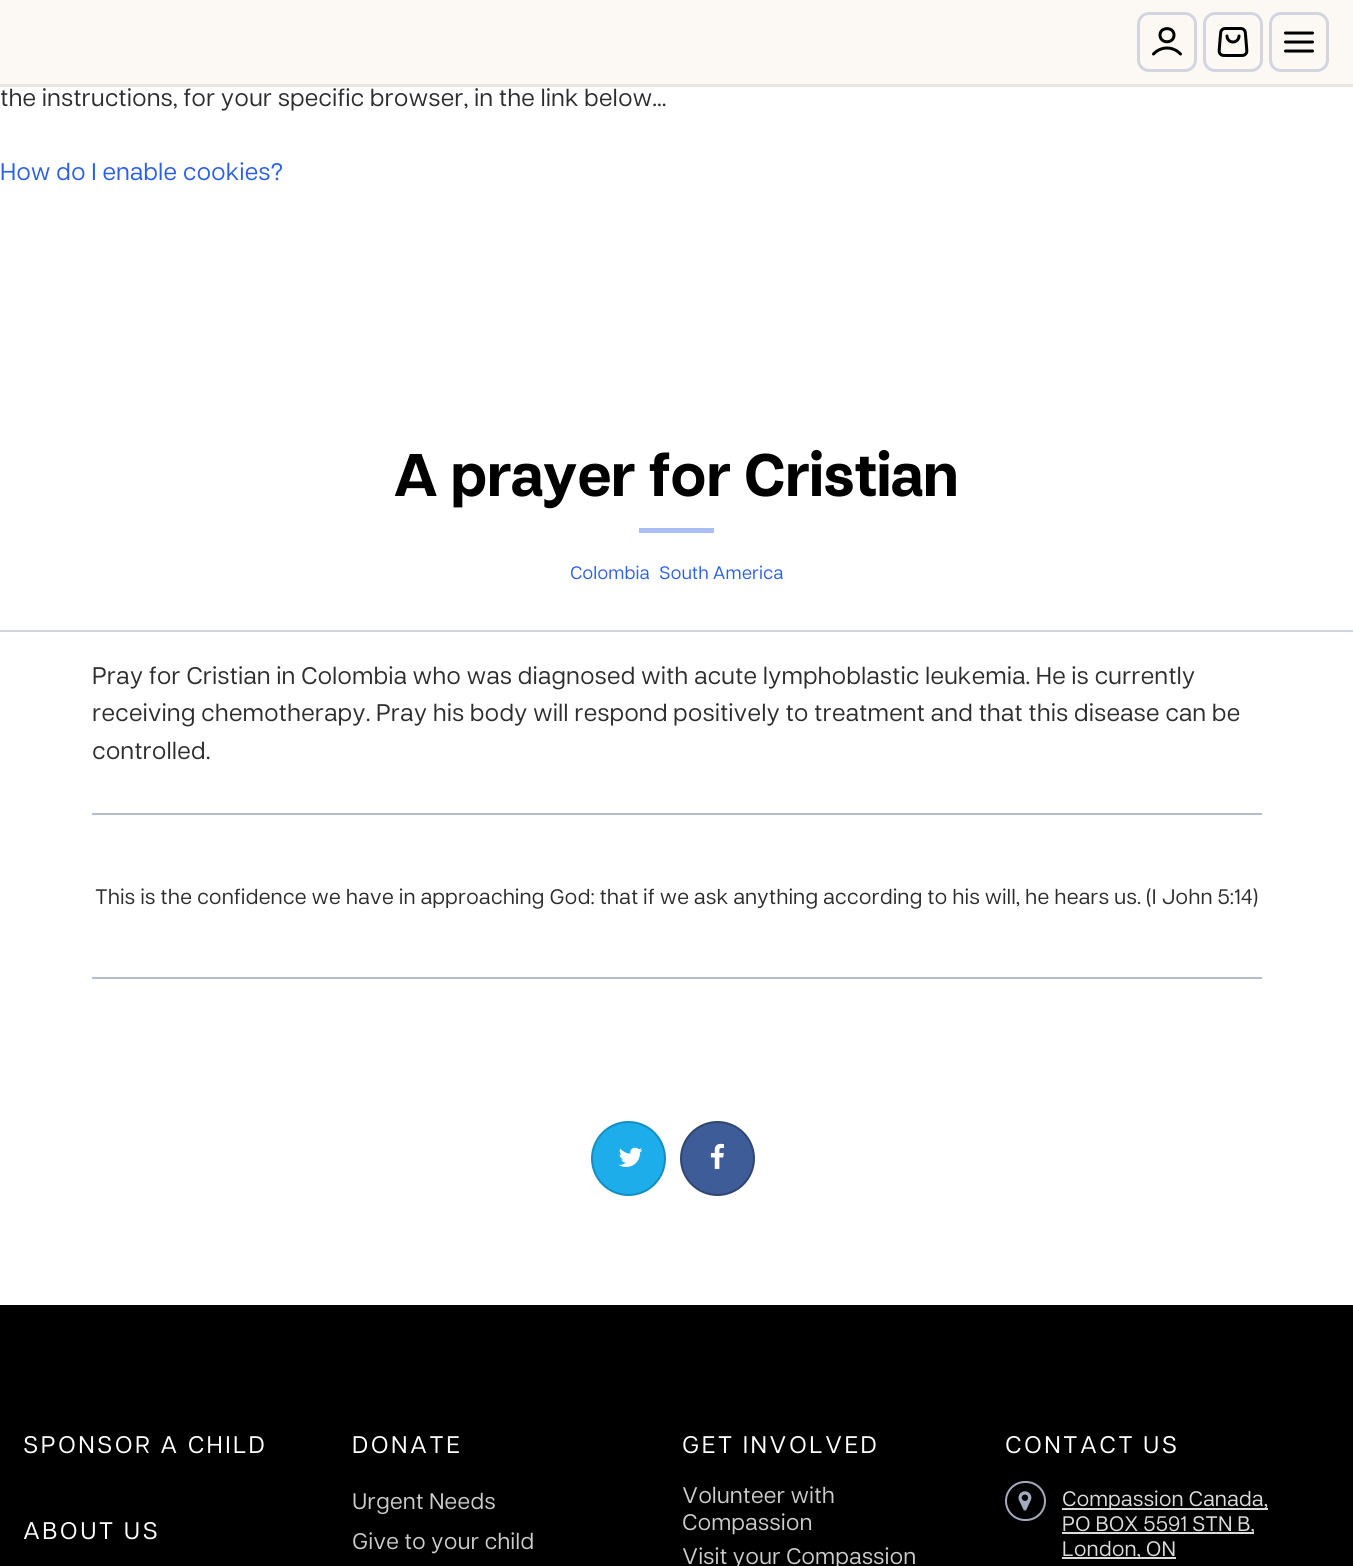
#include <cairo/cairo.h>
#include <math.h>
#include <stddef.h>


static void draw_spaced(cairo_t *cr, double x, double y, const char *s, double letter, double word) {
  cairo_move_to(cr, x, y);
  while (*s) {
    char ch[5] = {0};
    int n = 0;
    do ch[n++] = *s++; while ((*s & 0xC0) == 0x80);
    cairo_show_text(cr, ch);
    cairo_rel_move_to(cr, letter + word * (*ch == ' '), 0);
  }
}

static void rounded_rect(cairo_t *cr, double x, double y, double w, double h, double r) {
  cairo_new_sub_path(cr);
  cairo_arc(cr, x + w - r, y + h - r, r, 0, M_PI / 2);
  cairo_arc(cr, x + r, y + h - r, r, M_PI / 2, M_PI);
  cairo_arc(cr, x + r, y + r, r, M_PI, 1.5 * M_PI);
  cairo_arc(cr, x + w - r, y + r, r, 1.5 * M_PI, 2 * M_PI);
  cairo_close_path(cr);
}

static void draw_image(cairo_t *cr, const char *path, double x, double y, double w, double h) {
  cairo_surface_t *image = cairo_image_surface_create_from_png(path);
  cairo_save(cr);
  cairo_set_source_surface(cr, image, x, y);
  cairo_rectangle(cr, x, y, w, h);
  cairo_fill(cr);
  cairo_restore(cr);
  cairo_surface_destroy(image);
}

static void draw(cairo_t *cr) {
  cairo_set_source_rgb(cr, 1, 1, 1);
  cairo_paint(cr);
  cairo_set_source_rgb(cr, 252 / 255.0, 248 / 255.0, 244 / 255.0);
  cairo_rectangle(cr, 0, 0, 1353, 84);
  cairo_fill(cr);
  cairo_set_source_rgb(cr, 234 / 255.0, 228 / 255.0, 223 / 255.0);
  cairo_rectangle(cr, 0, 84, 1353, 3);
  cairo_fill(cr);
  rounded_rect(cr, 1138.5, 13.5, 57, 57, 10.5);
  cairo_set_source_rgb(cr, 210 / 255.0, 213 / 255.0, 223 / 255.0);
  cairo_set_line_width(cr, 3);
  cairo_stroke(cr);
  cairo_new_path(cr);
  cairo_move_to(cr, 1153.5, 54);
  cairo_curve_to(cr, 1161, 46, 1173, 46, 1180.5, 54);
  cairo_move_to(cr, 1174, 35);
  cairo_curve_to(cr, 1174, 44, 1160, 44, 1160, 35);
  cairo_curve_to(cr, 1160, 26.5, 1174, 26.5, 1174, 35);
  cairo_close_path(cr);
  cairo_set_source_rgb(cr, 0, 0, 0);
  cairo_set_line_cap(cr, CAIRO_LINE_CAP_ROUND);
  cairo_set_line_join(cr, CAIRO_LINE_JOIN_ROUND);
  cairo_stroke(cr);
  rounded_rect(cr, 1204.5, 13.5, 57, 57, 10.5);
  cairo_set_source_rgb(cr, 210 / 255.0, 213 / 255.0, 223 / 255.0);
  cairo_set_line_cap(cr, CAIRO_LINE_CAP_BUTT);
  cairo_set_line_join(cr, CAIRO_LINE_JOIN_MITER);
  cairo_stroke(cr);
  draw_image(cr, "images/1.png", 1217, 27, 32, 30);
  rounded_rect(cr, 1270.5, 13.5, 57, 57, 10.5);
  cairo_stroke(cr);
  cairo_new_path(cr);
  cairo_move_to(cr, 1285.5, 42);
  cairo_line_to(cr, 1312.5, 42);
  cairo_move_to(cr, 1285.5, 33);
  cairo_line_to(cr, 1312.5, 33);
  cairo_move_to(cr, 1285.5, 51);
  cairo_line_to(cr, 1312.5, 51);
  cairo_set_source_rgb(cr, 0, 0, 0);
  cairo_set_line_cap(cr, CAIRO_LINE_CAP_ROUND);
  cairo_set_line_join(cr, CAIRO_LINE_JOIN_ROUND);
  cairo_stroke(cr);
  cairo_set_source_rgb(cr, 210 / 255.0, 213 / 255.0, 223 / 255.0);
  cairo_rectangle(cr, 0, 630, 1353, 2);
  cairo_fill(cr);
  cairo_set_source_rgb(cr, 170 / 255.0, 191 / 255.0, 247 / 255.0);
  cairo_rectangle(cr, 639, 528, 75, 5);
  cairo_fill(cr);
  cairo_set_source_rgb(cr, 180 / 255.0, 190 / 255.0, 203 / 255.0);
  cairo_rectangle(cr, 92, 813, 1170, 2);
  cairo_fill(cr);
  cairo_rectangle(cr, 92, 977, 1170, 2);
  cairo_fill(cr);
  cairo_set_source_rgb(cr, 29 / 255.0, 173 / 255.0, 234 / 255.0);
  cairo_arc(cr, 628.5, 1158.5, 36.5, 0, 2 * M_PI);
  cairo_fill_preserve(cr);
  cairo_set_source_rgb(cr, 18 / 255.0, 142 / 255.0, 194 / 255.0);
  cairo_set_line_width(cr, 2);
  cairo_set_line_cap(cr, CAIRO_LINE_CAP_BUTT);
  cairo_set_line_join(cr, CAIRO_LINE_JOIN_MITER);
  cairo_stroke(cr);
  draw_image(cr, "images/2.png", 618, 1147, 25, 20);
  cairo_set_source_rgb(cr, 62 / 255.0, 92 / 255.0, 151 / 255.0);
  cairo_arc(cr, 717.5, 1158.5, 36.5, 0, 2 * M_PI);
  cairo_fill_preserve(cr);
  cairo_set_source_rgb(cr, 47 / 255.0, 70 / 255.0, 115 / 255.0);
  cairo_stroke(cr);
  draw_image(cr, "images/3.png", 710, 1143, 14, 26);
  cairo_set_source_rgb(cr, 0, 0, 0);
  cairo_rectangle(cr, 0, 1305, 1353, 261);
  cairo_fill(cr);
  rounded_rect(cr, 1006, 1482, 39, 38, 19);
  cairo_set_source_rgb(cr, 165 / 255.0, 171 / 255.0, 191 / 255.0);
  cairo_stroke(cr);
  draw_image(cr, "images/4.png", 1018, 1491, 14, 20);
  cairo_set_source_rgb(cr, 220 / 255.0, 220 / 255.0, 220 / 255.0);
  cairo_rectangle(cr, 1062, 1508, 206, 2);
  cairo_fill(cr);
  cairo_rectangle(cr, 1062, 1532, 192, 2);
  cairo_fill(cr);
  cairo_rectangle(cr, 1062, 1557, 114, 2);
  cairo_fill(cr);
  cairo_select_font_face(cr, "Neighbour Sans", CAIRO_FONT_SLANT_NORMAL, CAIRO_FONT_WEIGHT_NORMAL);
  cairo_set_font_size(cr, 24);
  cairo_set_source_rgb(cr, 45 / 255.0, 45 / 255.0, 45 / 255.0);
  cairo_move_to(cr, 0, 106);
  cairo_show_text(cr, "the instructions, for your specific browser, in the link below...");
  cairo_set_source_rgb(cr, 42 / 255.0, 94 / 255.0, 236 / 255.0);
  cairo_move_to(cr, 0, 180);
  cairo_show_text(cr, "How do I enable cookies?");
  cairo_select_font_face(cr, "Neighbour Sans", CAIRO_FONT_SLANT_NORMAL, CAIRO_FONT_WEIGHT_BOLD);
  cairo_set_font_size(cr, 60);
  cairo_set_source_rgb(cr, 0, 0, 0);
  cairo_move_to(cr, 394, 496);
  cairo_show_text(cr, "A prayer for Cristian");
  cairo_select_font_face(cr, "Neighbour Sans", CAIRO_FONT_SLANT_NORMAL, CAIRO_FONT_WEIGHT_NORMAL);
  cairo_set_font_size(cr, 18);
  cairo_set_source_rgb(cr, 42 / 255.0, 94 / 255.0, 236 / 255.0);
  cairo_move_to(cr, 570, 579);
  cairo_show_text(cr, "Colombia");
  cairo_move_to(cr, 659, 579);
  cairo_show_text(cr, "South America");
  cairo_set_font_size(cr, 24);
  cairo_set_source_rgb(cr, 45 / 255.0, 45 / 255.0, 45 / 255.0);
  cairo_move_to(cr, 92, 684);
  cairo_show_text(cr, "Pray for Cristian in Colombia who was diagnosed with acute lymphoblastic leukemia. He is currently");
  cairo_move_to(cr, 92, 721);
  cairo_show_text(cr, "receiving chemotherapy. Pray his body will respond positively to treatment and that this disease can be");
  cairo_move_to(cr, 92, 759);
  cairo_show_text(cr, "controlled.");
  cairo_set_font_size(cr, 21);
  cairo_move_to(cr, 95, 904);
  cairo_show_text(cr, "This is the confidence we have in approaching God: that if we ask anything according to his will, he hears us. (I John 5:14)");
  cairo_set_font_size(cr, 24);
  cairo_set_source_rgb(cr, 1, 1, 1);
  draw_spaced(cr, 23, 1453, "SPONSOR A CHILD", 2.4, 0);
  draw_spaced(cr, 23, 1539, "ABOUT US", 2.4, 0);
  draw_spaced(cr, 352, 1453, "DONATE", 2.4, 0);
  cairo_set_font_size(cr, 22.5);
  cairo_set_source_rgb(cr, 204 / 255.0, 204 / 255.0, 204 / 255.0);
  cairo_move_to(cr, 352, 1509);
  cairo_show_text(cr, "Urgent Needs");
  cairo_move_to(cr, 352, 1549);
  cairo_show_text(cr, "Give to your child");
  cairo_set_font_size(cr, 24);
  cairo_set_source_rgb(cr, 1, 1, 1);
  draw_spaced(cr, 682, 1453, "GET INVOLVED", 2.4, 0);
  cairo_set_font_size(cr, 22.5);
  cairo_set_source_rgb(cr, 204 / 255.0, 204 / 255.0, 204 / 255.0);
  cairo_move_to(cr, 682, 1503);
  cairo_show_text(cr, "Volunteer with");
  cairo_move_to(cr, 682, 1530);
  cairo_show_text(cr, "Compassion");
  cairo_move_to(cr, 682, 1564);
  cairo_show_text(cr, "Visit your Compassion");
  cairo_set_font_size(cr, 24);
  cairo_set_source_rgb(cr, 1, 1, 1);
  draw_spaced(cr, 1005, 1453, "CONTACT US", 2.4, 0);
  cairo_set_font_size(cr, 21);
  cairo_set_source_rgb(cr, 220 / 255.0, 220 / 255.0, 220 / 255.0);
  cairo_move_to(cr, 1062, 1506);
  cairo_show_text(cr, "Compassion Canada,");
  cairo_move_to(cr, 1062, 1531);
  cairo_show_text(cr, "PO BOX 5591 STN B,");
  cairo_move_to(cr, 1062, 1556);
  cairo_show_text(cr, "London, ON");
}

int main(void) {
  cairo_surface_t *surface = cairo_image_surface_create(CAIRO_FORMAT_RGB24, 1353, 1566);
  cairo_t *cr = cairo_create(surface);
  cairo_font_options_t *options = cairo_font_options_create();
  cairo_font_options_set_hint_metrics(options, CAIRO_HINT_METRICS_OFF);
  cairo_font_options_set_hint_style(options, CAIRO_HINT_STYLE_NONE);
  cairo_set_font_options(cr, options);
  cairo_set_miter_limit(cr, 4);
  draw(cr);
  cairo_surface_write_to_png(surface, "out.png");
  cairo_font_options_destroy(options);
  cairo_destroy(cr);
  cairo_surface_destroy(surface);
  return 0;
}
